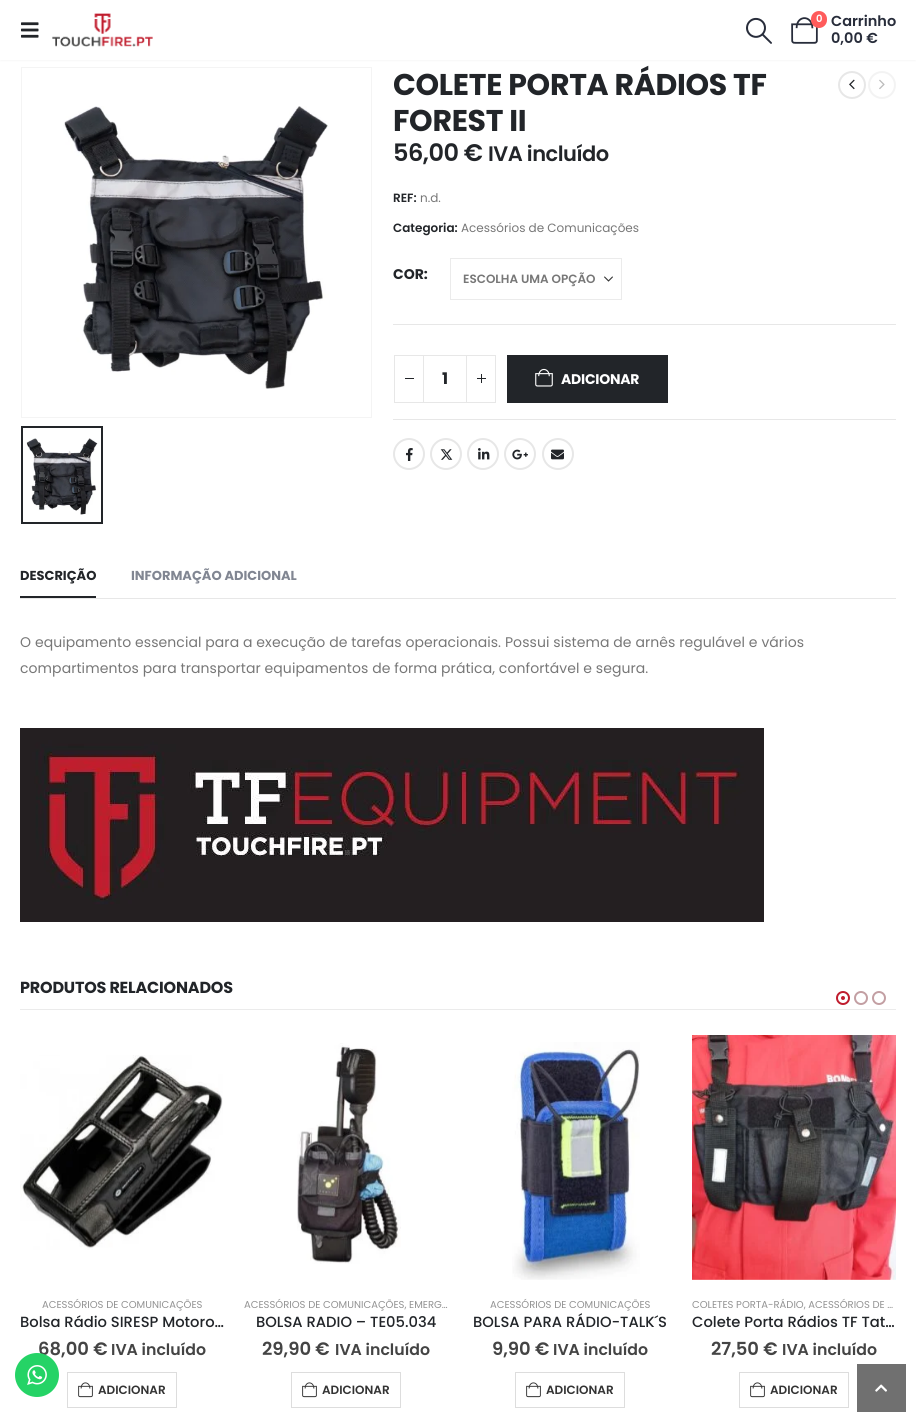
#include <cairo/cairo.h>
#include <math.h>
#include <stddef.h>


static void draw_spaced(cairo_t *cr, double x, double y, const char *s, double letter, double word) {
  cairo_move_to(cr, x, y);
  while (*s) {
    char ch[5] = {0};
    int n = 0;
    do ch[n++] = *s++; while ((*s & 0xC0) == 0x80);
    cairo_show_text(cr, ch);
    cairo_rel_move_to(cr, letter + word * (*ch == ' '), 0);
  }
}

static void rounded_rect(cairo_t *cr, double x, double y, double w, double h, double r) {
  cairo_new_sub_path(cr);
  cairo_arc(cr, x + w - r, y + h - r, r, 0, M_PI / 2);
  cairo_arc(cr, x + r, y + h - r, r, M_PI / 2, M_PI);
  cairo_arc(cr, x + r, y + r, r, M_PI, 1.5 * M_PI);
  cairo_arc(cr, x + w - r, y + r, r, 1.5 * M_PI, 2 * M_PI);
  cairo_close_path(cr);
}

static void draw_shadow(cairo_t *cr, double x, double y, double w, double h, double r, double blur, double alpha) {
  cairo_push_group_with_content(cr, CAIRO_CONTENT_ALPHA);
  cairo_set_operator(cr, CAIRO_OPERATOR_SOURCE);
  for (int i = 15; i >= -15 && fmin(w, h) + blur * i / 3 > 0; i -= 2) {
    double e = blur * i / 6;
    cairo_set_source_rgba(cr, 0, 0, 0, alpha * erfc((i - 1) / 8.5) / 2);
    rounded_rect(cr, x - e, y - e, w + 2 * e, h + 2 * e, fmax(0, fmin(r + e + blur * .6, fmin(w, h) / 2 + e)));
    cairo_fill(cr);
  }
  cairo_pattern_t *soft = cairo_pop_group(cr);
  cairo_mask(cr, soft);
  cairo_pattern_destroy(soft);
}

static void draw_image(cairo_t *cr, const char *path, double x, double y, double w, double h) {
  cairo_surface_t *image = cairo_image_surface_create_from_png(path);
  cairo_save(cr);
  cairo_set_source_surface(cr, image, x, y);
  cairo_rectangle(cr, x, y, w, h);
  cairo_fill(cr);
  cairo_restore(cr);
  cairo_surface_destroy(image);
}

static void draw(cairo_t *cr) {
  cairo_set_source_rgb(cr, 1, 1, 1);
  cairo_paint(cr);
  cairo_set_source_rgb(cr, 0, 0, 0);
  draw_shadow(cr, 0, 0, 916, 60, 0, 1.5, 0.06);
  cairo_set_source_rgb(cr, 1, 1, 1);
  cairo_rectangle(cr, 0, 0, 916, 60);
  cairo_fill(cr);
  draw_image(cr, "images/1.png", 21, 22, 18, 16);
  draw_image(cr, "images/2.png", 52, 13, 101, 34);
  draw_image(cr, "images/3.png", 746, 17, 26, 27);
  draw_image(cr, "images/4.png", 791, 17, 27, 27);
  cairo_set_source_rgb(cr, 1, 91 / 255.0, 91 / 255.0);
  rounded_rect(cr, 811, 11, 16, 17, 8);
  cairo_fill(cr);
  cairo_rectangle(cr, 21.5, 67.5, 350, 350);
  cairo_set_source_rgb(cr, 244 / 255.0, 244 / 255.0, 244 / 255.0);
  cairo_set_line_width(cr, 1);
  cairo_stroke(cr);
  draw_image(cr, "images/5.png", 63, 106, 266, 283);
  cairo_rectangle(cr, 22, 427, 80, 96);
  cairo_set_source_rgb(cr, 34 / 255.0, 37 / 255.0, 41 / 255.0);
  cairo_set_line_width(cr, 2);
  cairo_stroke(cr);
  draw_image(cr, "images/6.png", 26, 438, 72, 77);
  cairo_arc(cr, 852, 85, 13, 0, 2 * M_PI);
  cairo_set_source_rgb(cr, 231 / 255.0, 231 / 255.0, 231 / 255.0);
  cairo_stroke(cr);
  draw_image(cr, "images/7.png", 849, 79, 6, 11);
  cairo_arc(cr, 882, 85, 13, 0, 2 * M_PI);
  cairo_set_source_rgb(cr, 243 / 255.0, 243 / 255.0, 243 / 255.0);
  cairo_stroke(cr);
  draw_image(cr, "images/8.png", 879, 79, 6, 11);
  draw_image(cr, "images/9.png", 604, 276, 9, 6);
  cairo_rectangle(cr, 450.5, 258.5, 171, 41);
  cairo_set_source_rgb(cr, 235 / 255.0, 235 / 255.0, 235 / 255.0);
  cairo_set_line_width(cr, 1);
  cairo_stroke(cr);
  cairo_set_source_rgb(cr, 231 / 255.0, 231 / 255.0, 231 / 255.0);
  cairo_rectangle(cr, 393, 324, 503, 1);
  cairo_fill(cr);
  cairo_rectangle(cr, 393, 419, 503, 1);
  cairo_fill(cr);
  cairo_rectangle(cr, 423, 355, 44, 1);
  cairo_fill(cr);
  cairo_rectangle(cr, 423, 402, 44, 1);
  cairo_fill(cr);
  cairo_rectangle(cr, 394.5, 355.5, 29, 47);
  cairo_stroke(cr);
  cairo_set_source_rgb(cr, 34 / 255.0, 37 / 255.0, 41 / 255.0);
  cairo_rectangle(cr, 405, 378, 9, 1);
  cairo_fill(cr);
  cairo_rectangle(cr, 466.5, 355.5, 29, 47);
  cairo_set_source_rgb(cr, 231 / 255.0, 231 / 255.0, 231 / 255.0);
  cairo_stroke(cr);
  cairo_set_source_rgb(cr, 34 / 255.0, 37 / 255.0, 41 / 255.0);
  cairo_rectangle(cr, 477, 378, 9, 1);
  cairo_fill(cr);
  cairo_rectangle(cr, 481, 374, 1, 9);
  cairo_fill(cr);
  cairo_rectangle(cr, 507, 355, 161, 48);
  cairo_fill(cr);
  draw_image(cr, "images/10.png", 535, 368, 18, 19);
  cairo_arc(cr, 409, 454, 15, 0, 2 * M_PI);
  cairo_set_source_rgb(cr, 231 / 255.0, 231 / 255.0, 231 / 255.0);
  cairo_set_line_width(cr, 2);
  cairo_stroke(cr);
  draw_image(cr, "images/11.png", 406, 448, 7, 13);
  cairo_arc(cr, 446, 454, 15, 0, 2 * M_PI);
  cairo_stroke(cr);
  draw_image(cr, "images/12.png", 440, 449, 13, 11);
  cairo_arc(cr, 483, 454, 15, 0, 2 * M_PI);
  cairo_stroke(cr);
  draw_image(cr, "images/13.png", 478, 448, 12, 12);
  cairo_arc(cr, 520, 454, 15, 0, 2 * M_PI);
  cairo_stroke(cr);
  draw_image(cr, "images/14.png", 512, 449, 16, 11);
  cairo_arc(cr, 558, 454, 15, 0, 2 * M_PI);
  cairo_stroke(cr);
  draw_image(cr, "images/15.png", 551, 449, 13, 11);
  cairo_set_source_rgb(cr, 34 / 255.0, 37 / 255.0, 41 / 255.0);
  cairo_rectangle(cr, 20, 596, 76, 2);
  cairo_fill(cr);
  cairo_set_source_rgb(cr, 231 / 255.0, 231 / 255.0, 231 / 255.0);
  cairo_rectangle(cr, 20, 598, 876, 1);
  cairo_fill(cr);
  draw_image(cr, "images/16.png", 20, 728, 744, 194);
  cairo_set_source_rgb(cr, 235 / 255.0, 235 / 255.0, 235 / 255.0);
  cairo_rectangle(cr, 20, 1009, 876, 1);
  cairo_fill(cr);
  cairo_arc(cr, 843, 998, 6, 0, 2 * M_PI);
  cairo_set_source_rgb(cr, 192 / 255.0, 29 / 255.0, 46 / 255.0);
  cairo_stroke(cr);
  cairo_arc(cr, 843, 998, 2, 0, 2 * M_PI);
  cairo_fill(cr);
  cairo_arc(cr, 861, 998, 6, 0, 2 * M_PI);
  cairo_set_source_rgb(cr, 195 / 255.0, 159 / 255.0, 163 / 255.0);
  cairo_stroke(cr);
  cairo_arc(cr, 879, 998, 6, 0, 2 * M_PI);
  cairo_stroke(cr);
  draw_image(cr, "images/17.png", 20, 1055, 203, 195);
  cairo_rectangle(cr, 67.5, 1372.5, 109, 35);
  cairo_set_source_rgb(cr, 221 / 255.0, 221 / 255.0, 221 / 255.0);
  cairo_set_line_width(cr, 1);
  cairo_stroke(cr);
  draw_image(cr, "images/18.png", 78, 1382, 15, 16);
  draw_image(cr, "images/19.png", 297, 1043, 104, 221);
  cairo_rectangle(cr, 291.5, 1372.5, 109, 35);
  cairo_stroke(cr);
  draw_image(cr, "images/18.png", 302, 1382, 15, 16);
  draw_image(cr, "images/20.png", 512, 1042, 128, 238);
  cairo_rectangle(cr, 515.5, 1372.5, 109, 35);
  cairo_stroke(cr);
  draw_image(cr, "images/18.png", 526, 1382, 15, 16);
  draw_image(cr, "images/21.png", 692, 1035, 204, 245);
  cairo_rectangle(cr, 739.5, 1372.5, 109, 35);
  cairo_stroke(cr);
  draw_image(cr, "images/18.png", 750, 1382, 15, 16);
  cairo_set_source_rgb(cr, 112 / 255.0, 112 / 255.0, 112 / 255.0);
  cairo_rectangle(cr, 857, 1364, 49, 48);
  cairo_fill(cr);
  draw_image(cr, "images/23.png", 875, 1384, 12, 8);
  cairo_select_font_face(cr, "Poppins SemiBold", CAIRO_FONT_SLANT_NORMAL, CAIRO_FONT_WEIGHT_NORMAL);
  cairo_set_font_size(cr, 10);
  cairo_set_source_rgb(cr, 1, 1, 1);
  cairo_move_to(cr, 816, 22);
  cairo_show_text(cr, "0");
  cairo_set_font_size(cr, 14.5);
  cairo_set_source_rgb(cr, 40 / 255.0, 45 / 255.0, 59 / 255.0);
  cairo_move_to(cr, 831, 26);
  cairo_show_text(cr, "Carrinho");
  cairo_move_to(cr, 831, 43);
  cairo_show_text(cr, "0,00 €");
  cairo_select_font_face(cr, "Poppins", CAIRO_FONT_SLANT_NORMAL, CAIRO_FONT_WEIGHT_BOLD);
  cairo_set_font_size(cr, 30);
  cairo_set_source_rgb(cr, 34 / 255.0, 37 / 255.0, 41 / 255.0);
  draw_spaced(cr, 393, 95, "COLETE PORTA RÁDIOS TF", -0.3, 0);
  draw_spaced(cr, 393, 131, "FOREST II", -0.3, 0);
  cairo_select_font_face(cr, "Poppins SemiBold", CAIRO_FONT_SLANT_NORMAL, CAIRO_FONT_WEIGHT_NORMAL);
  cairo_set_font_size(cr, 24);
  draw_spaced(cr, 393, 161, "56,00 €", -0.5, 0);
  cairo_set_font_size(cr, 21);
  draw_spaced(cr, 488, 161, "IVA incluído", -0.5, 0);
  cairo_set_font_size(cr, 12);
  cairo_move_to(cr, 393, 202);
  cairo_show_text(cr, "REF:");
  cairo_select_font_face(cr, "Poppins", CAIRO_FONT_SLANT_NORMAL, CAIRO_FONT_WEIGHT_NORMAL);
  cairo_set_source_rgb(cr, 119 / 255.0, 119 / 255.0, 119 / 255.0);
  cairo_move_to(cr, 420, 202);
  cairo_show_text(cr, "n.d.");
  cairo_select_font_face(cr, "Poppins SemiBold", CAIRO_FONT_SLANT_NORMAL, CAIRO_FONT_WEIGHT_NORMAL);
  cairo_set_source_rgb(cr, 34 / 255.0, 37 / 255.0, 41 / 255.0);
  cairo_move_to(cr, 393, 232);
  cairo_show_text(cr, "Categoria:");
  cairo_select_font_face(cr, "Poppins", CAIRO_FONT_SLANT_NORMAL, CAIRO_FONT_WEIGHT_NORMAL);
  cairo_set_source_rgb(cr, 119 / 255.0, 119 / 255.0, 119 / 255.0);
  cairo_move_to(cr, 461, 232);
  cairo_show_text(cr, "Acessórios de Comunicações");
  cairo_select_font_face(cr, "Poppins", CAIRO_FONT_SLANT_NORMAL, CAIRO_FONT_WEIGHT_BOLD);
  cairo_set_font_size(cr, 14);
  cairo_set_source_rgb(cr, 34 / 255.0, 37 / 255.0, 41 / 255.0);
  cairo_move_to(cr, 393, 279);
  cairo_show_text(cr, "COR:");
  cairo_select_font_face(cr, "Poppins SemiBold", CAIRO_FONT_SLANT_NORMAL, CAIRO_FONT_WEIGHT_NORMAL);
  cairo_set_font_size(cr, 12);
  cairo_set_source_rgb(cr, 119 / 255.0, 119 / 255.0, 119 / 255.0);
  cairo_move_to(cr, 463, 283);
  cairo_show_text(cr, "ESCOLHA UMA OPÇÃO");
  cairo_select_font_face(cr, "Poppins", CAIRO_FONT_SLANT_NORMAL, CAIRO_FONT_WEIGHT_BOLD);
  cairo_set_font_size(cr, 16);
  cairo_set_source_rgb(cr, 34 / 255.0, 37 / 255.0, 41 / 255.0);
  cairo_move_to(cr, 442, 384);
  cairo_show_text(cr, "1");
  cairo_set_font_size(cr, 14);
  cairo_set_source_rgb(cr, 1, 1, 1);
  draw_spaced(cr, 561, 384, "ADICIONAR", -0.25, 0);
  cairo_set_font_size(cr, 13);
  cairo_set_source_rgb(cr, 34 / 255.0, 37 / 255.0, 41 / 255.0);
  cairo_move_to(cr, 20, 580);
  cairo_show_text(cr, "DESCRIÇÃO");
  cairo_set_source_rgb(cr, 129 / 255.0, 134 / 255.0, 146 / 255.0);
  cairo_move_to(cr, 131, 580);
  cairo_show_text(cr, "INFORMAÇÃO ADICIONAL");
  cairo_select_font_face(cr, "Poppins", CAIRO_FONT_SLANT_NORMAL, CAIRO_FONT_WEIGHT_NORMAL);
  cairo_set_font_size(cr, 14);
  cairo_set_source_rgb(cr, 119 / 255.0, 119 / 255.0, 119 / 255.0);
  draw_spaced(cr, 20, 647, "O equipamento essencial para a execução de tarefas operacionais. Possui sistema de arnês regulável e vários", 0.07, 0);
  draw_spaced(cr, 20, 673, "compartimentos para transportar equipamentos de forma prática, confortável e segura.", 0.07, 0);
  cairo_select_font_face(cr, "Poppins", CAIRO_FONT_SLANT_NORMAL, CAIRO_FONT_WEIGHT_BOLD);
  cairo_set_font_size(cr, 16);
  cairo_set_source_rgb(cr, 34 / 255.0, 37 / 255.0, 41 / 255.0);
  draw_spaced(cr, 20, 993, "PRODUTOS RELACIONADOS", -0.2, 0);
  cairo_select_font_face(cr, "Poppins", CAIRO_FONT_SLANT_NORMAL, CAIRO_FONT_WEIGHT_NORMAL);
  cairo_set_font_size(cr, 10);
  cairo_set_source_rgb(cr, 146 / 255.0, 146 / 255.0, 146 / 255.0);
  cairo_move_to(cr, 42, 1308);
  cairo_show_text(cr, "ACESSÓRIOS DE COMUNICAÇÕES");
  cairo_select_font_face(cr, "Poppins Medium", CAIRO_FONT_SLANT_NORMAL, CAIRO_FONT_WEIGHT_NORMAL);
  cairo_set_font_size(cr, 14.75);
  cairo_set_source_rgb(cr, 34 / 255.0, 37 / 255.0, 41 / 255.0);
  cairo_move_to(cr, 20, 1327);
  cairo_show_text(cr, "Bolsa Rádio SIRESP Motoro…");
  cairo_select_font_face(cr, "Poppins SemiBold", CAIRO_FONT_SLANT_NORMAL, CAIRO_FONT_WEIGHT_NORMAL);
  cairo_set_font_size(cr, 18);
  cairo_set_source_rgb(cr, 68 / 255.0, 68 / 255.0, 68 / 255.0);
  cairo_move_to(cr, 38, 1355);
  cairo_show_text(cr, "68,00 €");
  cairo_set_font_size(cr, 15.75);
  cairo_move_to(cr, 111, 1355);
  cairo_show_text(cr, "IVA incluído");
  cairo_set_font_size(cr, 12);
  cairo_set_source_rgb(cr, 51 / 255.0, 51 / 255.0, 51 / 255.0);
  cairo_move_to(cr, 98, 1394);
  cairo_show_text(cr, "ADICIONAR");
  cairo_select_font_face(cr, "Poppins", CAIRO_FONT_SLANT_NORMAL, CAIRO_FONT_WEIGHT_NORMAL);
  cairo_set_font_size(cr, 10);
  cairo_set_source_rgb(cr, 146 / 255.0, 146 / 255.0, 146 / 255.0);
  cairo_move_to(cr, 244, 1308);
  cairo_show_text(cr, "ACESSÓRIOS DE COMUNICAÇÕES, EMERG…");
  cairo_select_font_face(cr, "Poppins Medium", CAIRO_FONT_SLANT_NORMAL, CAIRO_FONT_WEIGHT_NORMAL);
  cairo_set_font_size(cr, 14.75);
  cairo_set_source_rgb(cr, 34 / 255.0, 37 / 255.0, 41 / 255.0);
  cairo_move_to(cr, 256, 1327);
  cairo_show_text(cr, "BOLSA RADIO – TE05.034");
  cairo_select_font_face(cr, "Poppins SemiBold", CAIRO_FONT_SLANT_NORMAL, CAIRO_FONT_WEIGHT_NORMAL);
  cairo_set_font_size(cr, 18);
  cairo_set_source_rgb(cr, 68 / 255.0, 68 / 255.0, 68 / 255.0);
  cairo_move_to(cr, 262, 1355);
  cairo_show_text(cr, "29,90 €");
  cairo_set_font_size(cr, 15.75);
  cairo_move_to(cr, 335, 1355);
  cairo_show_text(cr, "IVA incluído");
  cairo_set_font_size(cr, 12);
  cairo_set_source_rgb(cr, 51 / 255.0, 51 / 255.0, 51 / 255.0);
  cairo_move_to(cr, 322, 1394);
  cairo_show_text(cr, "ADICIONAR");
  cairo_select_font_face(cr, "Poppins", CAIRO_FONT_SLANT_NORMAL, CAIRO_FONT_WEIGHT_NORMAL);
  cairo_set_font_size(cr, 10);
  cairo_set_source_rgb(cr, 146 / 255.0, 146 / 255.0, 146 / 255.0);
  cairo_move_to(cr, 490, 1308);
  cairo_show_text(cr, "ACESSÓRIOS DE COMUNICAÇÕES");
  cairo_select_font_face(cr, "Poppins Medium", CAIRO_FONT_SLANT_NORMAL, CAIRO_FONT_WEIGHT_NORMAL);
  cairo_set_font_size(cr, 14.75);
  cairo_set_source_rgb(cr, 34 / 255.0, 37 / 255.0, 41 / 255.0);
  cairo_move_to(cr, 473, 1327);
  cairo_show_text(cr, "BOLSA PARA RÁDIO-TALK´S");
  cairo_select_font_face(cr, "Poppins SemiBold", CAIRO_FONT_SLANT_NORMAL, CAIRO_FONT_WEIGHT_NORMAL);
  cairo_set_font_size(cr, 18);
  cairo_set_source_rgb(cr, 68 / 255.0, 68 / 255.0, 68 / 255.0);
  cairo_move_to(cr, 492, 1355);
  cairo_show_text(cr, "9,90 €");
  cairo_set_font_size(cr, 15.75);
  cairo_move_to(cr, 553, 1355);
  cairo_show_text(cr, "IVA incluído");
  cairo_set_font_size(cr, 12);
  cairo_set_source_rgb(cr, 51 / 255.0, 51 / 255.0, 51 / 255.0);
  cairo_move_to(cr, 546, 1394);
  cairo_show_text(cr, "ADICIONAR");
  cairo_select_font_face(cr, "Poppins", CAIRO_FONT_SLANT_NORMAL, CAIRO_FONT_WEIGHT_NORMAL);
  cairo_set_font_size(cr, 10);
  cairo_set_source_rgb(cr, 146 / 255.0, 146 / 255.0, 146 / 255.0);
  cairo_move_to(cr, 692, 1308);
  cairo_show_text(cr, "COLETES PORTA-RÁDIO, ACESSÓRIOS DE …");
  cairo_select_font_face(cr, "Poppins Medium", CAIRO_FONT_SLANT_NORMAL, CAIRO_FONT_WEIGHT_NORMAL);
  cairo_set_font_size(cr, 14.75);
  cairo_set_source_rgb(cr, 34 / 255.0, 37 / 255.0, 41 / 255.0);
  cairo_move_to(cr, 692, 1327);
  cairo_show_text(cr, "Colete Porta Rádios TF Tat…");
  cairo_select_font_face(cr, "Poppins SemiBold", CAIRO_FONT_SLANT_NORMAL, CAIRO_FONT_WEIGHT_NORMAL);
  cairo_set_font_size(cr, 18);
  cairo_set_source_rgb(cr, 68 / 255.0, 68 / 255.0, 68 / 255.0);
  cairo_move_to(cr, 711, 1355);
  cairo_show_text(cr, "27,50 €");
  cairo_set_font_size(cr, 15.75);
  cairo_move_to(cr, 782, 1355);
  cairo_show_text(cr, "IVA incluído");
  cairo_set_font_size(cr, 12);
  cairo_set_source_rgb(cr, 51 / 255.0, 51 / 255.0, 51 / 255.0);
  cairo_move_to(cr, 770, 1394);
  cairo_show_text(cr, "ADICIONAR");
  cairo_set_source_rgb(cr, 37 / 255.0, 211 / 255.0, 102 / 255.0);
  cairo_new_path(cr);
  cairo_arc(cr, 37, 1375, 22, 0, 2 * M_PI);
  cairo_fill(cr);
  draw_image(cr, "images/22.png", 27, 1365, 20, 20);
}

int main(void) {
  cairo_surface_t *surface = cairo_image_surface_create(CAIRO_FORMAT_RGB24, 916, 1412);
  cairo_t *cr = cairo_create(surface);
  cairo_font_options_t *options = cairo_font_options_create();
  cairo_font_options_set_hint_metrics(options, CAIRO_HINT_METRICS_OFF);
  cairo_font_options_set_hint_style(options, CAIRO_HINT_STYLE_NONE);
  cairo_set_font_options(cr, options);
  cairo_set_miter_limit(cr, 4);
  draw(cr);
  cairo_surface_write_to_png(surface, "out.png");
  cairo_font_options_destroy(options);
  cairo_destroy(cr);
  cairo_surface_destroy(surface);
  return 0;
}
